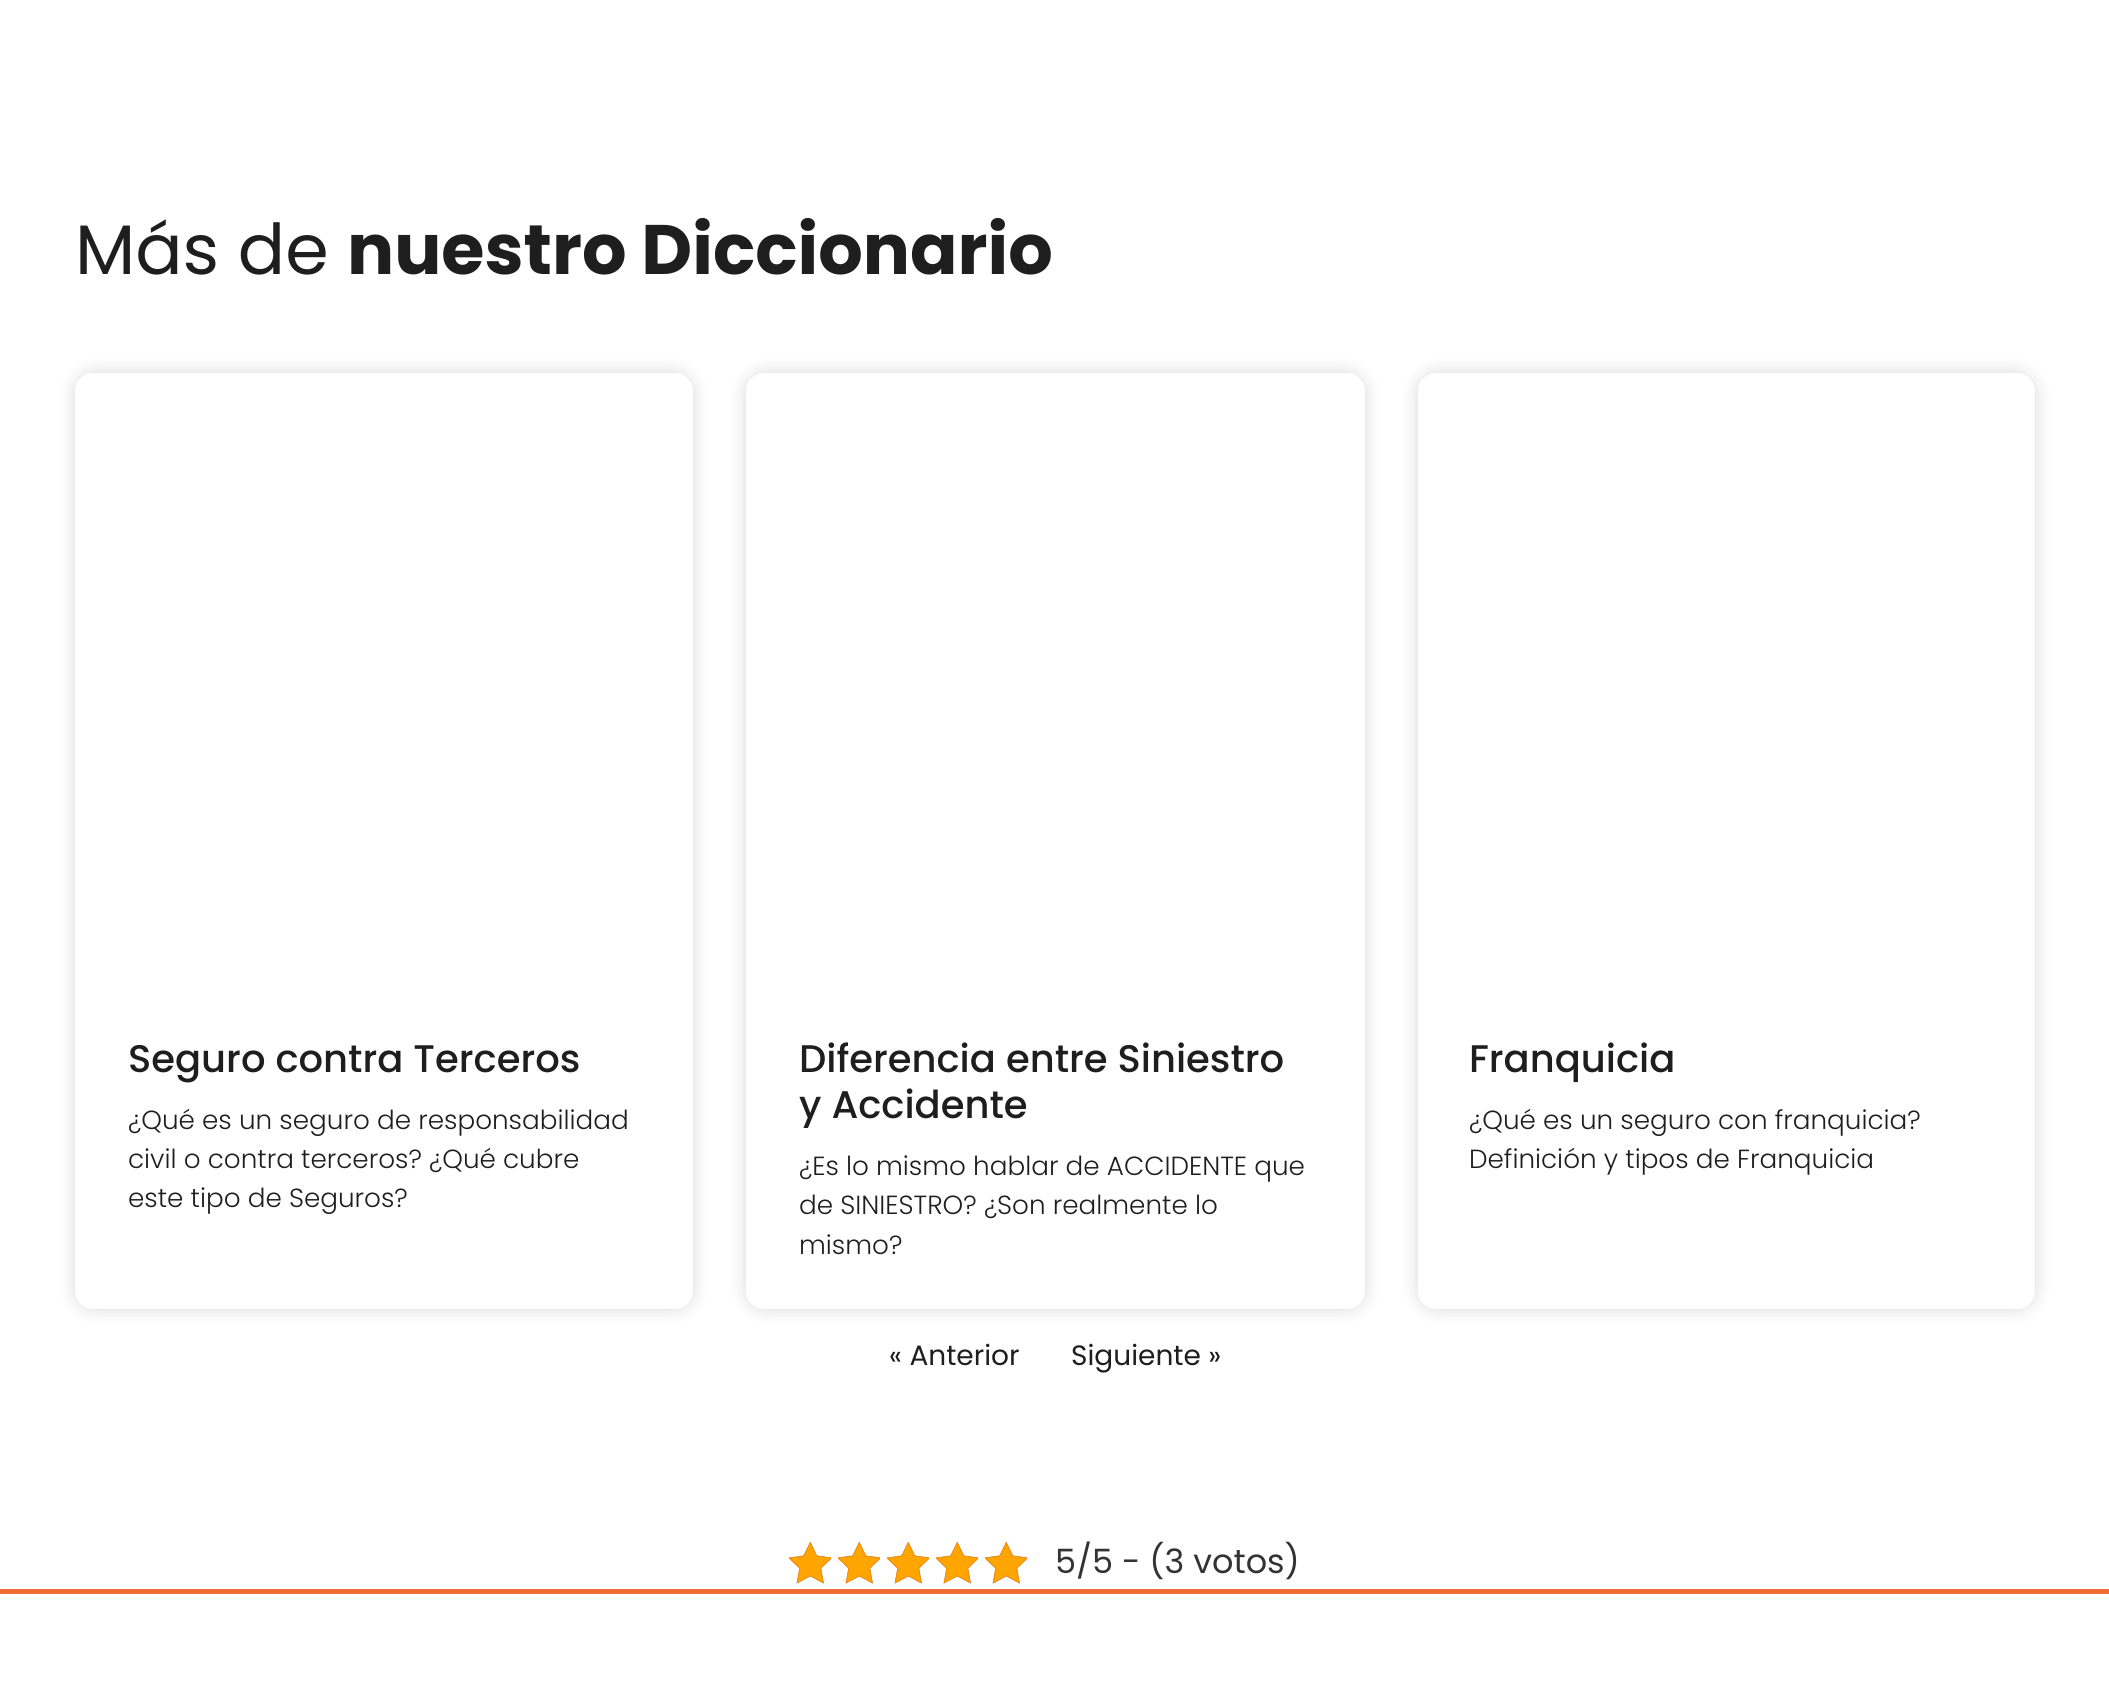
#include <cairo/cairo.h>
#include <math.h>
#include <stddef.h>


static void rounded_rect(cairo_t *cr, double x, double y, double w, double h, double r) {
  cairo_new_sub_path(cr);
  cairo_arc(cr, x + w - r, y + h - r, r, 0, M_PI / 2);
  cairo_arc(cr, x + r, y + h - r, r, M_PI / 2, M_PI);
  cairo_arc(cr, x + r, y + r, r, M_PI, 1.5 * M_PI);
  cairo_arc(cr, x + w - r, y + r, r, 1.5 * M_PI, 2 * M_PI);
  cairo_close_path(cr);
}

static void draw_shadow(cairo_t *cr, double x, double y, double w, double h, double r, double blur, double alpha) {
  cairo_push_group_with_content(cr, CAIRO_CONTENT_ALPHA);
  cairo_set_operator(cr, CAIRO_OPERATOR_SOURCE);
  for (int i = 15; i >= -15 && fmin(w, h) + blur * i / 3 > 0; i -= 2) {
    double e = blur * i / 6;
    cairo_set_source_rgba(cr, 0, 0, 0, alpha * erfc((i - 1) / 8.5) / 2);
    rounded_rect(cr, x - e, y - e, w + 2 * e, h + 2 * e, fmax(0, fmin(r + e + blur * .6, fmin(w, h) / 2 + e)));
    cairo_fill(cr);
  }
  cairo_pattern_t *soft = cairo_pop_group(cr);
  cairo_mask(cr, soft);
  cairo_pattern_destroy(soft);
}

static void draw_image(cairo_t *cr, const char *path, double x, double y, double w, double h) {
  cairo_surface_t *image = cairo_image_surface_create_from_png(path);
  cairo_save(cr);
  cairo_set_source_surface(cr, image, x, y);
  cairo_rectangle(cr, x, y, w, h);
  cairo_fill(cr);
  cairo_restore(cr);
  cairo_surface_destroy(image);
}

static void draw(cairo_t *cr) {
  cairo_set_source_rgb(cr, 1, 1, 1);
  cairo_paint(cr);
  cairo_set_source_rgb(cr, 0, 0, 0);
  draw_shadow(cr, 75, 373, 618, 936, 18, 9, 0.15);
  cairo_set_source_rgb(cr, 1, 1, 1);
  rounded_rect(cr, 75, 373, 618, 936, 18);
  cairo_fill(cr);
  cairo_set_source_rgb(cr, 0, 0, 0);
  draw_shadow(cr, 746, 373, 619, 936, 18, 9, 0.15);
  cairo_set_source_rgb(cr, 1, 1, 1);
  rounded_rect(cr, 746, 373, 619, 936, 18);
  cairo_fill(cr);
  cairo_set_source_rgb(cr, 0, 0, 0);
  draw_shadow(cr, 1418, 373, 617, 936, 18, 9, 0.15);
  cairo_set_source_rgb(cr, 1, 1, 1);
  rounded_rect(cr, 1418, 373, 617, 936, 18);
  cairo_fill(cr);
  draw_image(cr, "images/1.png", 789, 1542, 42, 42);
  draw_image(cr, "images/1.png", 838, 1542, 42, 42);
  draw_image(cr, "images/1.png", 887, 1542, 42, 42);
  draw_image(cr, "images/1.png", 936, 1542, 42, 42);
  draw_image(cr, "images/1.png", 985, 1542, 42, 42);
  draw_image(cr, "images/2.png", 789, 1542, 42, 42);
  draw_image(cr, "images/2.png", 838, 1542, 42, 42);
  draw_image(cr, "images/2.png", 887, 1542, 42, 42);
  draw_image(cr, "images/2.png", 936, 1542, 42, 42);
  draw_image(cr, "images/2.png", 985, 1542, 42, 42);
  cairo_set_source_rgb(cr, 239 / 255.0, 109 / 255.0, 55 / 255.0);
  cairo_rectangle(cr, 0, 1589, 2109, 5);
  cairo_fill(cr);
  cairo_select_font_face(cr, "Poppins", CAIRO_FONT_SLANT_NORMAL, CAIRO_FONT_WEIGHT_NORMAL);
  cairo_set_font_size(cr, 70);
  cairo_set_source_rgb(cr, 30 / 255.0, 30 / 255.0, 30 / 255.0);
  cairo_move_to(cr, 75, 274);
  cairo_show_text(cr, "Más de");
  cairo_select_font_face(cr, "Poppins", CAIRO_FONT_SLANT_NORMAL, CAIRO_FONT_WEIGHT_BOLD);
  cairo_move_to(cr, 347, 274);
  cairo_show_text(cr, "nuestro Diccionario");
  cairo_select_font_face(cr, "Poppins Medium", CAIRO_FONT_SLANT_NORMAL, CAIRO_FONT_WEIGHT_NORMAL);
  cairo_set_font_size(cr, 38.5);
  cairo_move_to(cr, 128, 1072);
  cairo_show_text(cr, "Seguro contra Terceros");
  cairo_select_font_face(cr, "Poppins Light", CAIRO_FONT_SLANT_NORMAL, CAIRO_FONT_WEIGHT_NORMAL);
  cairo_set_font_size(cr, 26.25);
  cairo_move_to(cr, 128, 1129);
  cairo_show_text(cr, "¿Qué es un seguro de responsabilidad");
  cairo_move_to(cr, 128, 1168);
  cairo_show_text(cr, "civil o contra terceros? ¿Qué cubre");
  cairo_move_to(cr, 128, 1207);
  cairo_show_text(cr, "este tipo de Seguros?");
  cairo_select_font_face(cr, "Poppins Medium", CAIRO_FONT_SLANT_NORMAL, CAIRO_FONT_WEIGHT_NORMAL);
  cairo_set_font_size(cr, 38.5);
  cairo_move_to(cr, 799, 1072);
  cairo_show_text(cr, "Diferencia entre Siniestro");
  cairo_move_to(cr, 799, 1118);
  cairo_show_text(cr, "y Accidente");
  cairo_select_font_face(cr, "Poppins Light", CAIRO_FONT_SLANT_NORMAL, CAIRO_FONT_WEIGHT_NORMAL);
  cairo_set_font_size(cr, 26.25);
  cairo_move_to(cr, 799, 1175);
  cairo_show_text(cr, "¿Es lo mismo hablar de ACCIDENTE que");
  cairo_move_to(cr, 799, 1214);
  cairo_show_text(cr, "de SINIESTRO? ¿Son realmente lo");
  cairo_move_to(cr, 799, 1254);
  cairo_show_text(cr, "mismo?");
  cairo_select_font_face(cr, "Poppins Medium", CAIRO_FONT_SLANT_NORMAL, CAIRO_FONT_WEIGHT_NORMAL);
  cairo_set_font_size(cr, 38.5);
  cairo_move_to(cr, 1469, 1072);
  cairo_show_text(cr, "Franquicia");
  cairo_select_font_face(cr, "Poppins Light", CAIRO_FONT_SLANT_NORMAL, CAIRO_FONT_WEIGHT_NORMAL);
  cairo_set_font_size(cr, 26.25);
  cairo_move_to(cr, 1469, 1129);
  cairo_show_text(cr, "¿Qué es un seguro con franquicia?");
  cairo_move_to(cr, 1469, 1168);
  cairo_show_text(cr, "Definición y tipos de Franquicia");
  cairo_select_font_face(cr, "Poppins", CAIRO_FONT_SLANT_NORMAL, CAIRO_FONT_WEIGHT_NORMAL);
  cairo_set_font_size(cr, 28);
  cairo_move_to(cr, 889, 1365);
  cairo_show_text(cr, "« Anterior");
  cairo_move_to(cr, 1071, 1365);
  cairo_show_text(cr, "Siguiente »");
  cairo_set_font_size(cr, 33.5);
  cairo_set_source_rgb(cr, 51 / 255.0, 51 / 255.0, 51 / 255.0);
  cairo_move_to(cr, 1055, 1573);
  cairo_show_text(cr, "5/5 - (3 votos)");
}

int main(void) {
  cairo_surface_t *surface = cairo_image_surface_create(CAIRO_FORMAT_RGB24, 2109, 1704);
  cairo_t *cr = cairo_create(surface);
  cairo_font_options_t *options = cairo_font_options_create();
  cairo_font_options_set_hint_metrics(options, CAIRO_HINT_METRICS_OFF);
  cairo_font_options_set_hint_style(options, CAIRO_HINT_STYLE_NONE);
  cairo_set_font_options(cr, options);
  cairo_set_miter_limit(cr, 4);
  draw(cr);
  cairo_surface_write_to_png(surface, "out.png");
  cairo_font_options_destroy(options);
  cairo_destroy(cr);
  cairo_surface_destroy(surface);
  return 0;
}
